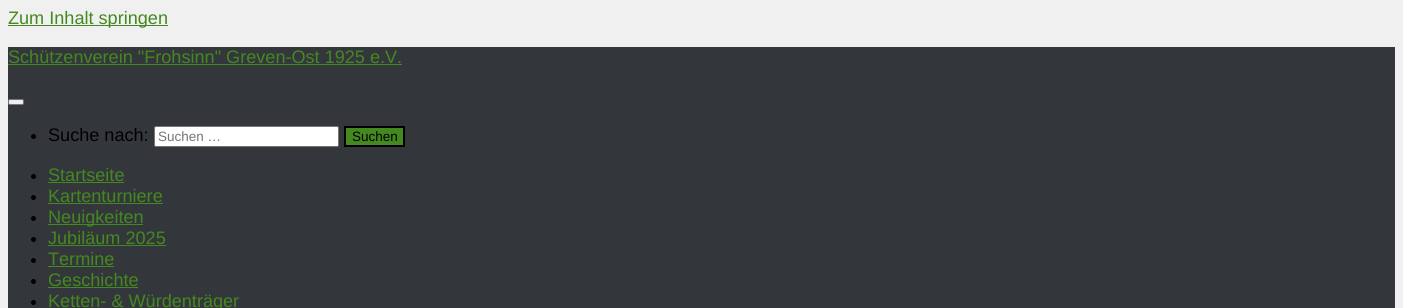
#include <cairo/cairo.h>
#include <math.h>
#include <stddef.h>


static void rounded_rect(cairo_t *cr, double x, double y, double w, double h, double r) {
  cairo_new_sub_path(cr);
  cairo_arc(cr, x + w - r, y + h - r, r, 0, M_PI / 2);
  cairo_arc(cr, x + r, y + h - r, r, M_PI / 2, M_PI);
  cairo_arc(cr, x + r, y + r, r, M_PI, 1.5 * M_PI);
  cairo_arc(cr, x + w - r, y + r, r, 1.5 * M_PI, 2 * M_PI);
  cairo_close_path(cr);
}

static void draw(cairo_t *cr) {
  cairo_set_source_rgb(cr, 240 / 255.0, 240 / 255.0, 240 / 255.0);
  cairo_paint(cr);
  cairo_set_source_rgb(cr, 68 / 255.0, 137 / 255.0, 31 / 255.0);
  cairo_rectangle(cr, 8, 25, 160, 1);
  cairo_fill(cr);
  cairo_set_source_rgb(cr, 51 / 255.0, 54 / 255.0, 59 / 255.0);
  cairo_rectangle(cr, 8, 47, 1387, 261);
  cairo_fill(cr);
  cairo_set_source_rgb(cr, 68 / 255.0, 137 / 255.0, 31 / 255.0);
  cairo_rectangle(cr, 8, 64, 394, 1);
  cairo_fill(cr);
  cairo_set_source_rgb(cr, 239 / 255.0, 239 / 255.0, 239 / 255.0);
  rounded_rect(cr, 8.5, 99.5, 15, 5, 1.5);
  cairo_fill_preserve(cr);
  cairo_set_source_rgb(cr, 118 / 255.0, 118 / 255.0, 118 / 255.0);
  cairo_set_line_width(cr, 1);
  cairo_stroke(cr);
  cairo_set_source_rgb(cr, 0, 0, 0);
  cairo_arc(cr, 33.5, 136.5, 2.5, 0, 2 * M_PI);
  cairo_fill(cr);
  cairo_set_source_rgb(cr, 1, 1, 1);
  rounded_rect(cr, 154.5, 126.5, 184, 20, 1.5);
  cairo_fill_preserve(cr);
  cairo_set_source_rgb(cr, 118 / 255.0, 118 / 255.0, 118 / 255.0);
  cairo_stroke(cr);
  cairo_set_source_rgb(cr, 68 / 255.0, 137 / 255.0, 31 / 255.0);
  cairo_rectangle(cr, 345, 127, 59, 19);
  cairo_fill_preserve(cr);
  cairo_set_source_rgb(cr, 0, 0, 0);
  cairo_set_line_width(cr, 2);
  cairo_stroke(cr);
  cairo_arc(cr, 33.5, 176.5, 2.5, 0, 2 * M_PI);
  cairo_fill(cr);
  cairo_set_source_rgb(cr, 68 / 255.0, 137 / 255.0, 31 / 255.0);
  cairo_rectangle(cr, 48, 182, 76, 1);
  cairo_fill(cr);
  cairo_set_source_rgb(cr, 0, 0, 0);
  cairo_arc(cr, 33.5, 197.5, 2.5, 0, 2 * M_PI);
  cairo_fill(cr);
  cairo_set_source_rgb(cr, 68 / 255.0, 137 / 255.0, 31 / 255.0);
  cairo_rectangle(cr, 48, 203, 115, 1);
  cairo_fill(cr);
  cairo_set_source_rgb(cr, 0, 0, 0);
  cairo_arc(cr, 33.5, 218.5, 2.5, 0, 2 * M_PI);
  cairo_fill(cr);
  cairo_set_source_rgb(cr, 68 / 255.0, 137 / 255.0, 31 / 255.0);
  cairo_rectangle(cr, 48, 224, 95, 1);
  cairo_fill(cr);
  cairo_set_source_rgb(cr, 0, 0, 0);
  cairo_arc(cr, 33.5, 239.5, 2.5, 0, 2 * M_PI);
  cairo_fill(cr);
  cairo_set_source_rgb(cr, 68 / 255.0, 137 / 255.0, 31 / 255.0);
  cairo_rectangle(cr, 48, 245, 118, 1);
  cairo_fill(cr);
  cairo_set_source_rgb(cr, 0, 0, 0);
  cairo_arc(cr, 33.5, 260.5, 2.5, 0, 2 * M_PI);
  cairo_fill(cr);
  cairo_set_source_rgb(cr, 68 / 255.0, 137 / 255.0, 31 / 255.0);
  cairo_rectangle(cr, 48, 266, 66, 1);
  cairo_fill(cr);
  cairo_set_source_rgb(cr, 0, 0, 0);
  cairo_arc(cr, 33.5, 281.5, 2.5, 0, 2 * M_PI);
  cairo_fill(cr);
  cairo_set_source_rgb(cr, 68 / 255.0, 137 / 255.0, 31 / 255.0);
  cairo_rectangle(cr, 48, 287, 90, 1);
  cairo_fill(cr);
  cairo_set_source_rgb(cr, 0, 0, 0);
  cairo_arc(cr, 33.5, 302.5, 2.5, 0, 2 * M_PI);
  cairo_fill(cr);
  cairo_select_font_face(cr, "Liberation Sans", CAIRO_FONT_SLANT_NORMAL, CAIRO_FONT_WEIGHT_NORMAL);
  cairo_set_font_size(cr, 18.1);
  cairo_set_source_rgb(cr, 68 / 255.0, 137 / 255.0, 31 / 255.0);
  cairo_move_to(cr, 8, 24);
  cairo_show_text(cr, "Zum Inhalt springen");
  cairo_move_to(cr, 8, 63);
  cairo_show_text(cr, "Schützenverein \"Frohsinn\" Greven-Ost 1925 e.V.");
  cairo_set_source_rgb(cr, 0, 0, 0);
  cairo_move_to(cr, 48, 141);
  cairo_show_text(cr, "Suche nach:");
  cairo_set_font_size(cr, 13.5);
  cairo_set_source_rgb(cr, 117 / 255.0, 117 / 255.0, 117 / 255.0);
  cairo_move_to(cr, 158, 141);
  cairo_show_text(cr, "Suchen …");
  cairo_set_source_rgb(cr, 0, 0, 0);
  cairo_move_to(cr, 352, 141);
  cairo_show_text(cr, "Suchen");
  cairo_set_font_size(cr, 18.1);
  cairo_set_source_rgb(cr, 68 / 255.0, 137 / 255.0, 31 / 255.0);
  cairo_move_to(cr, 48, 181);
  cairo_show_text(cr, "Startseite");
  cairo_move_to(cr, 48, 202);
  cairo_show_text(cr, "Kartenturniere");
  cairo_move_to(cr, 48, 223);
  cairo_show_text(cr, "Neuigkeiten");
  cairo_move_to(cr, 48, 244);
  cairo_show_text(cr, "Jubiläum 2025");
  cairo_move_to(cr, 48, 265);
  cairo_show_text(cr, "Termine");
  cairo_move_to(cr, 48, 286);
  cairo_show_text(cr, "Geschichte");
  cairo_move_to(cr, 48, 307);
  cairo_show_text(cr, "Ketten- & Würdenträger");
}

int main(void) {
  cairo_surface_t *surface = cairo_image_surface_create(CAIRO_FORMAT_RGB24, 1403, 308);
  cairo_t *cr = cairo_create(surface);
  cairo_font_options_t *options = cairo_font_options_create();
  cairo_font_options_set_hint_metrics(options, CAIRO_HINT_METRICS_OFF);
  cairo_font_options_set_hint_style(options, CAIRO_HINT_STYLE_NONE);
  cairo_set_font_options(cr, options);
  cairo_set_miter_limit(cr, 4);
  draw(cr);
  cairo_surface_write_to_png(surface, "out.png");
  cairo_font_options_destroy(options);
  cairo_destroy(cr);
  cairo_surface_destroy(surface);
  return 0;
}
